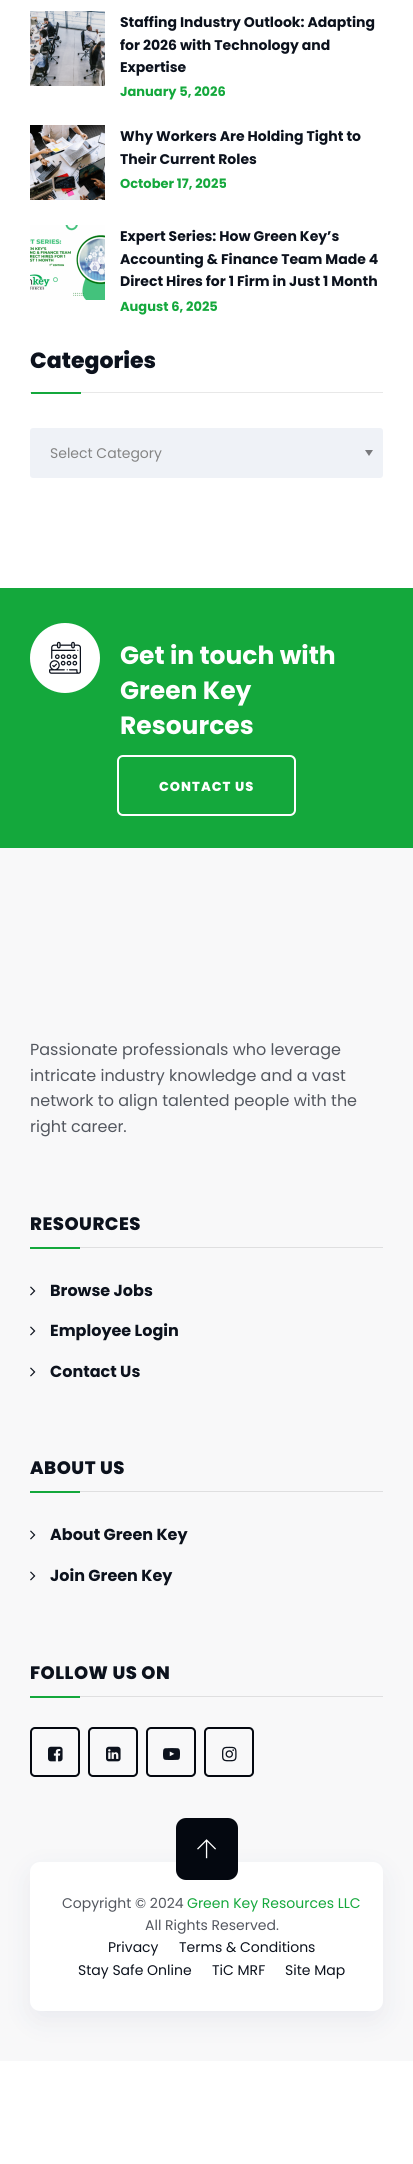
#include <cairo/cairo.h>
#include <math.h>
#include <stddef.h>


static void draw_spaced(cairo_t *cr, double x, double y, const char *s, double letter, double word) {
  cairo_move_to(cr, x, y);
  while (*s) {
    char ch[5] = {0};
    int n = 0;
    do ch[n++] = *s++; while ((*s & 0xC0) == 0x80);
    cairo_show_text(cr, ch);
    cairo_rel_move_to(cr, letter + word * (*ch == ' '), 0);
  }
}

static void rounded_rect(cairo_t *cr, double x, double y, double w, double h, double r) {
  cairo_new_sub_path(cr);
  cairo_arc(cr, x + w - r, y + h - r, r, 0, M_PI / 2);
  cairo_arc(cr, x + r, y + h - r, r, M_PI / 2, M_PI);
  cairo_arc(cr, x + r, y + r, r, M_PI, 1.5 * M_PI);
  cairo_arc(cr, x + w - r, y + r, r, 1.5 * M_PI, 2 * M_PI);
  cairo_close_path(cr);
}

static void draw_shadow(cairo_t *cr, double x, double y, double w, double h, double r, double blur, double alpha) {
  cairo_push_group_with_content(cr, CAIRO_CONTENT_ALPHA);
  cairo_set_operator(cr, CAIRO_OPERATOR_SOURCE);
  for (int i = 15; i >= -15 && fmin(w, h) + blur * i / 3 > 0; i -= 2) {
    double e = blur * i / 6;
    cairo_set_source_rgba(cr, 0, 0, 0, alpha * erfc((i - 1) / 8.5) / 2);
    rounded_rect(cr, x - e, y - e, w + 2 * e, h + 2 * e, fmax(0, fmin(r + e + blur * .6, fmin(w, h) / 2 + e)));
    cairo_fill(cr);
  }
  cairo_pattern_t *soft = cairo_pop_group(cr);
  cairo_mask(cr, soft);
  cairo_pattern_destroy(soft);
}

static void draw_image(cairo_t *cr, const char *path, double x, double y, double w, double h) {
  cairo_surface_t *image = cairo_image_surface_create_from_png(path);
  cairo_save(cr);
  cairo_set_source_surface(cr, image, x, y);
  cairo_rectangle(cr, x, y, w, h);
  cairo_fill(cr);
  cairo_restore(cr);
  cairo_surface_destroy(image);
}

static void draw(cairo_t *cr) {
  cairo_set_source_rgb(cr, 1, 1, 1);
  cairo_paint(cr);
  draw_image(cr, "images/1.png", 30, 11, 75, 75);
  draw_image(cr, "images/2.png", 30, 125, 75, 75);
  draw_image(cr, "images/3.png", 30, 225, 75, 75);
  cairo_set_source_rgb(cr, 232 / 255.0, 232 / 255.0, 232 / 255.0);
  cairo_rectangle(cr, 30, 392, 353, 1);
  cairo_fill(cr);
  cairo_set_source_rgb(cr, 20 / 255.0, 168 / 255.0, 60 / 255.0);
  cairo_rectangle(cr, 31, 392, 50, 2);
  cairo_fill(cr);
  cairo_set_source_rgb(cr, 239 / 255.0, 242 / 255.0, 247 / 255.0);
  rounded_rect(cr, 30, 428, 353, 50, 3);
  cairo_fill(cr);
  cairo_set_source_rgb(cr, 120 / 255.0, 121 / 255.0, 124 / 255.0);
  cairo_new_path(cr);
  cairo_move_to(cr, 365, 450);
  cairo_line_to(cr, 373, 450);
  cairo_line_to(cr, 369, 456);
  cairo_close_path(cr);
  cairo_fill(cr);
  cairo_set_source_rgb(cr, 248 / 255.0, 248 / 255.0, 249 / 255.0);
  cairo_rectangle(cr, 0, 848, 413, 1213);
  cairo_fill(cr);
  cairo_set_source_rgb(cr, 20 / 255.0, 168 / 255.0, 60 / 255.0);
  cairo_rectangle(cr, 0, 588, 413, 260);
  cairo_fill(cr);
  cairo_set_source_rgb(cr, 1, 1, 1);
  cairo_arc(cr, 65, 658, 35, 0, 2 * M_PI);
  cairo_fill(cr);
  draw_image(cr, "images/4.png", 49, 641, 32, 33);
  rounded_rect(cr, 118, 756, 177, 59, 5);
  cairo_stroke(cr);
  cairo_set_source_rgb(cr, 223 / 255.0, 223 / 255.0, 224 / 255.0);
  cairo_rectangle(cr, 80, 1247, 303, 1);
  cairo_fill(cr);
  cairo_set_source_rgb(cr, 20 / 255.0, 168 / 255.0, 60 / 255.0);
  cairo_rectangle(cr, 30, 1247, 50, 2);
  cairo_fill(cr);
  draw_image(cr, "images/5.png", 30, 1286, 6, 10);
  draw_image(cr, "images/5.png", 30, 1326, 6, 10);
  draw_image(cr, "images/5.png", 30, 1367, 6, 10);
  cairo_set_source_rgb(cr, 223 / 255.0, 223 / 255.0, 224 / 255.0);
  cairo_rectangle(cr, 80, 1491, 303, 1);
  cairo_fill(cr);
  cairo_set_source_rgb(cr, 20 / 255.0, 168 / 255.0, 60 / 255.0);
  cairo_rectangle(cr, 30, 1491, 50, 2);
  cairo_fill(cr);
  draw_image(cr, "images/5.png", 30, 1530, 6, 10);
  draw_image(cr, "images/5.png", 30, 1571, 6, 10);
  cairo_set_source_rgb(cr, 223 / 255.0, 223 / 255.0, 224 / 255.0);
  cairo_rectangle(cr, 80, 1696, 303, 1);
  cairo_fill(cr);
  cairo_set_source_rgb(cr, 20 / 255.0, 168 / 255.0, 60 / 255.0);
  cairo_rectangle(cr, 30, 1696, 50, 2);
  cairo_fill(cr);
  rounded_rect(cr, 31, 1728, 48, 48, 4);
  cairo_set_source_rgb(cr, 4 / 255.0, 8 / 255.0, 16 / 255.0);
  cairo_stroke(cr);
  draw_image(cr, "images/6.png", 48, 1746, 15, 16);
  rounded_rect(cr, 89, 1728, 48, 48, 4);
  cairo_stroke(cr);
  draw_image(cr, "images/7.png", 106, 1746, 15, 16);
  rounded_rect(cr, 147, 1728, 48, 48, 4);
  cairo_stroke(cr);
  draw_image(cr, "images/8.png", 163, 1748, 17, 12);
  rounded_rect(cr, 205, 1728, 48, 48, 4);
  cairo_stroke(cr);
  draw_image(cr, "images/9.png", 222, 1746, 15, 16);
  cairo_set_source_rgb(cr, 26 / 255.0, 47 / 255.0, 106 / 255.0);
  draw_shadow(cr, 30, 1871, 353, 149, 10, 15, 0.07);
  cairo_set_source_rgb(cr, 1, 1, 1);
  rounded_rect(cr, 30, 1862, 353, 149, 10);
  cairo_fill(cr);
  cairo_set_source_rgb(cr, 4 / 255.0, 8 / 255.0, 16 / 255.0);
  rounded_rect(cr, 176, 1818, 62, 62, 10);
  cairo_fill(cr);
  draw_image(cr, "images/10.png", 197, 1839, 19, 20);
  cairo_select_font_face(cr, "Poppins", CAIRO_FONT_SLANT_NORMAL, CAIRO_FONT_WEIGHT_BOLD);
  cairo_set_font_size(cr, 14);
  cairo_set_source_rgb(cr, 12 / 255.0, 18 / 255.0, 29 / 255.0);
  cairo_move_to(cr, 120, 27);
  cairo_show_text(cr, "Staffing Industry Outlook: Adapting");
  cairo_move_to(cr, 120, 50);
  cairo_show_text(cr, "for 2026 with Technology and");
  cairo_move_to(cr, 120, 72);
  cairo_show_text(cr, "Expertise");
  cairo_set_font_size(cr, 13);
  cairo_set_source_rgb(cr, 20 / 255.0, 168 / 255.0, 60 / 255.0);
  cairo_move_to(cr, 120, 96);
  cairo_show_text(cr, "January 5, 2026");
  cairo_set_font_size(cr, 14);
  cairo_set_source_rgb(cr, 12 / 255.0, 18 / 255.0, 29 / 255.0);
  cairo_move_to(cr, 120, 141);
  cairo_show_text(cr, "Why Workers Are Holding Tight to");
  cairo_move_to(cr, 120, 164);
  cairo_show_text(cr, "Their Current Roles");
  cairo_set_font_size(cr, 13);
  cairo_set_source_rgb(cr, 20 / 255.0, 168 / 255.0, 60 / 255.0);
  cairo_move_to(cr, 120, 188);
  cairo_show_text(cr, "October 17, 2025");
  cairo_set_font_size(cr, 14);
  cairo_set_source_rgb(cr, 12 / 255.0, 18 / 255.0, 29 / 255.0);
  cairo_move_to(cr, 120, 241);
  cairo_show_text(cr, "Expert Series: How Green Key’s");
  cairo_move_to(cr, 120, 264);
  cairo_show_text(cr, "Accounting & Finance Team Made 4");
  cairo_move_to(cr, 120, 286);
  cairo_show_text(cr, "Direct Hires for 1 Firm in Just 1 Month");
  cairo_set_font_size(cr, 13);
  cairo_set_source_rgb(cr, 20 / 255.0, 168 / 255.0, 60 / 255.0);
  cairo_move_to(cr, 120, 311);
  cairo_show_text(cr, "August 6, 2025");
  cairo_select_font_face(cr, "Poppins ExtraBold", CAIRO_FONT_SLANT_NORMAL, CAIRO_FONT_WEIGHT_NORMAL);
  cairo_set_font_size(cr, 22);
  cairo_set_source_rgb(cr, 12 / 255.0, 18 / 255.0, 29 / 255.0);
  cairo_move_to(cr, 30, 368);
  cairo_show_text(cr, "Categories");
  cairo_select_font_face(cr, "Poppins", CAIRO_FONT_SLANT_NORMAL, CAIRO_FONT_WEIGHT_NORMAL);
  cairo_set_font_size(cr, 14);
  cairo_set_source_rgb(cr, 132 / 255.0, 132 / 255.0, 132 / 255.0);
  cairo_move_to(cr, 50, 458);
  cairo_show_text(cr, "Select Category");
  cairo_select_font_face(cr, "Poppins", CAIRO_FONT_SLANT_NORMAL, CAIRO_FONT_WEIGHT_BOLD);
  cairo_set_font_size(cr, 25);
  cairo_set_source_rgb(cr, 1, 1, 1);
  cairo_move_to(cr, 120, 664);
  cairo_show_text(cr, "Get in touch with");
  cairo_move_to(cr, 120, 699);
  cairo_show_text(cr, "Green Key");
  cairo_move_to(cr, 120, 734);
  cairo_show_text(cr, "Resources");
  cairo_select_font_face(cr, "Poppins ExtraBold", CAIRO_FONT_SLANT_NORMAL, CAIRO_FONT_WEIGHT_NORMAL);
  cairo_set_font_size(cr, 13);
  draw_spaced(cr, 159, 791, "CONTACT US", 1, 0);
  cairo_select_font_face(cr, "Poppins", CAIRO_FONT_SLANT_NORMAL, CAIRO_FONT_WEIGHT_NORMAL);
  cairo_set_font_size(cr, 16);
  cairo_set_source_rgb(cr, 83 / 255.0, 87 / 255.0, 95 / 255.0);
  cairo_move_to(cr, 30, 1055);
  cairo_show_text(cr, "Passionate professionals who leverage");
  cairo_move_to(cr, 30, 1081);
  cairo_show_text(cr, "intricate industry knowledge and a vast");
  cairo_move_to(cr, 30, 1106);
  cairo_show_text(cr, "network to align talented people with the");
  cairo_move_to(cr, 30, 1132);
  cairo_show_text(cr, "right career.");
  cairo_select_font_face(cr, "Poppins ExtraBold", CAIRO_FONT_SLANT_NORMAL, CAIRO_FONT_WEIGHT_NORMAL);
  cairo_set_font_size(cr, 18);
  cairo_set_source_rgb(cr, 12 / 255.0, 18 / 255.0, 29 / 255.0);
  draw_spaced(cr, 30, 1230, "RESOURCES", 0.5, 0);
  cairo_select_font_face(cr, "Poppins", CAIRO_FONT_SLANT_NORMAL, CAIRO_FONT_WEIGHT_BOLD);
  cairo_set_font_size(cr, 16);
  cairo_move_to(cr, 50, 1296);
  cairo_show_text(cr, "Browse Jobs");
  cairo_move_to(cr, 50, 1336);
  cairo_show_text(cr, "Employee Login");
  cairo_move_to(cr, 50, 1377);
  cairo_show_text(cr, "Contact Us");
  cairo_select_font_face(cr, "Poppins ExtraBold", CAIRO_FONT_SLANT_NORMAL, CAIRO_FONT_WEIGHT_NORMAL);
  cairo_set_font_size(cr, 18);
  draw_spaced(cr, 30, 1474, "ABOUT US", 0.5, 0);
  cairo_select_font_face(cr, "Poppins", CAIRO_FONT_SLANT_NORMAL, CAIRO_FONT_WEIGHT_BOLD);
  cairo_set_font_size(cr, 16);
  cairo_move_to(cr, 50, 1540);
  cairo_show_text(cr, "About Green Key");
  cairo_move_to(cr, 50, 1581);
  cairo_show_text(cr, "Join Green Key");
  cairo_select_font_face(cr, "Poppins ExtraBold", CAIRO_FONT_SLANT_NORMAL, CAIRO_FONT_WEIGHT_NORMAL);
  cairo_set_font_size(cr, 18);
  draw_spaced(cr, 30, 1679, "FOLLOW US ON", 0.5, 0);
  cairo_select_font_face(cr, "Poppins", CAIRO_FONT_SLANT_NORMAL, CAIRO_FONT_WEIGHT_NORMAL);
  cairo_set_font_size(cr, 14);
  cairo_set_source_rgb(cr, 83 / 255.0, 87 / 255.0, 95 / 255.0);
  cairo_move_to(cr, 62, 1908);
  cairo_show_text(cr, "Copyright © 2024");
  cairo_set_source_rgb(cr, 20 / 255.0, 168 / 255.0, 60 / 255.0);
  cairo_move_to(cr, 187, 1908);
  cairo_show_text(cr, "Green Key Resources LLC");
  cairo_set_source_rgb(cr, 83 / 255.0, 87 / 255.0, 95 / 255.0);
  cairo_move_to(cr, 145, 1930);
  cairo_show_text(cr, "All Rights Reserved.");
  cairo_set_source_rgb(cr, 12 / 255.0, 18 / 255.0, 29 / 255.0);
  cairo_move_to(cr, 108, 1952);
  cairo_show_text(cr, "Privacy");
  cairo_move_to(cr, 179, 1952);
  cairo_show_text(cr, "Terms & Conditions");
  cairo_move_to(cr, 78, 1975);
  cairo_show_text(cr, "Stay Safe Online");
  cairo_move_to(cr, 212, 1975);
  cairo_show_text(cr, "TiC MRF");
  cairo_move_to(cr, 285, 1975);
  cairo_show_text(cr, "Site Map");
}

int main(void) {
  cairo_surface_t *surface = cairo_image_surface_create(CAIRO_FORMAT_RGB24, 413, 2164);
  cairo_t *cr = cairo_create(surface);
  cairo_font_options_t *options = cairo_font_options_create();
  cairo_font_options_set_hint_metrics(options, CAIRO_HINT_METRICS_OFF);
  cairo_font_options_set_hint_style(options, CAIRO_HINT_STYLE_NONE);
  cairo_set_font_options(cr, options);
  cairo_set_miter_limit(cr, 4);
  draw(cr);
  cairo_surface_write_to_png(surface, "out.png");
  cairo_font_options_destroy(options);
  cairo_destroy(cr);
  cairo_surface_destroy(surface);
  return 0;
}
